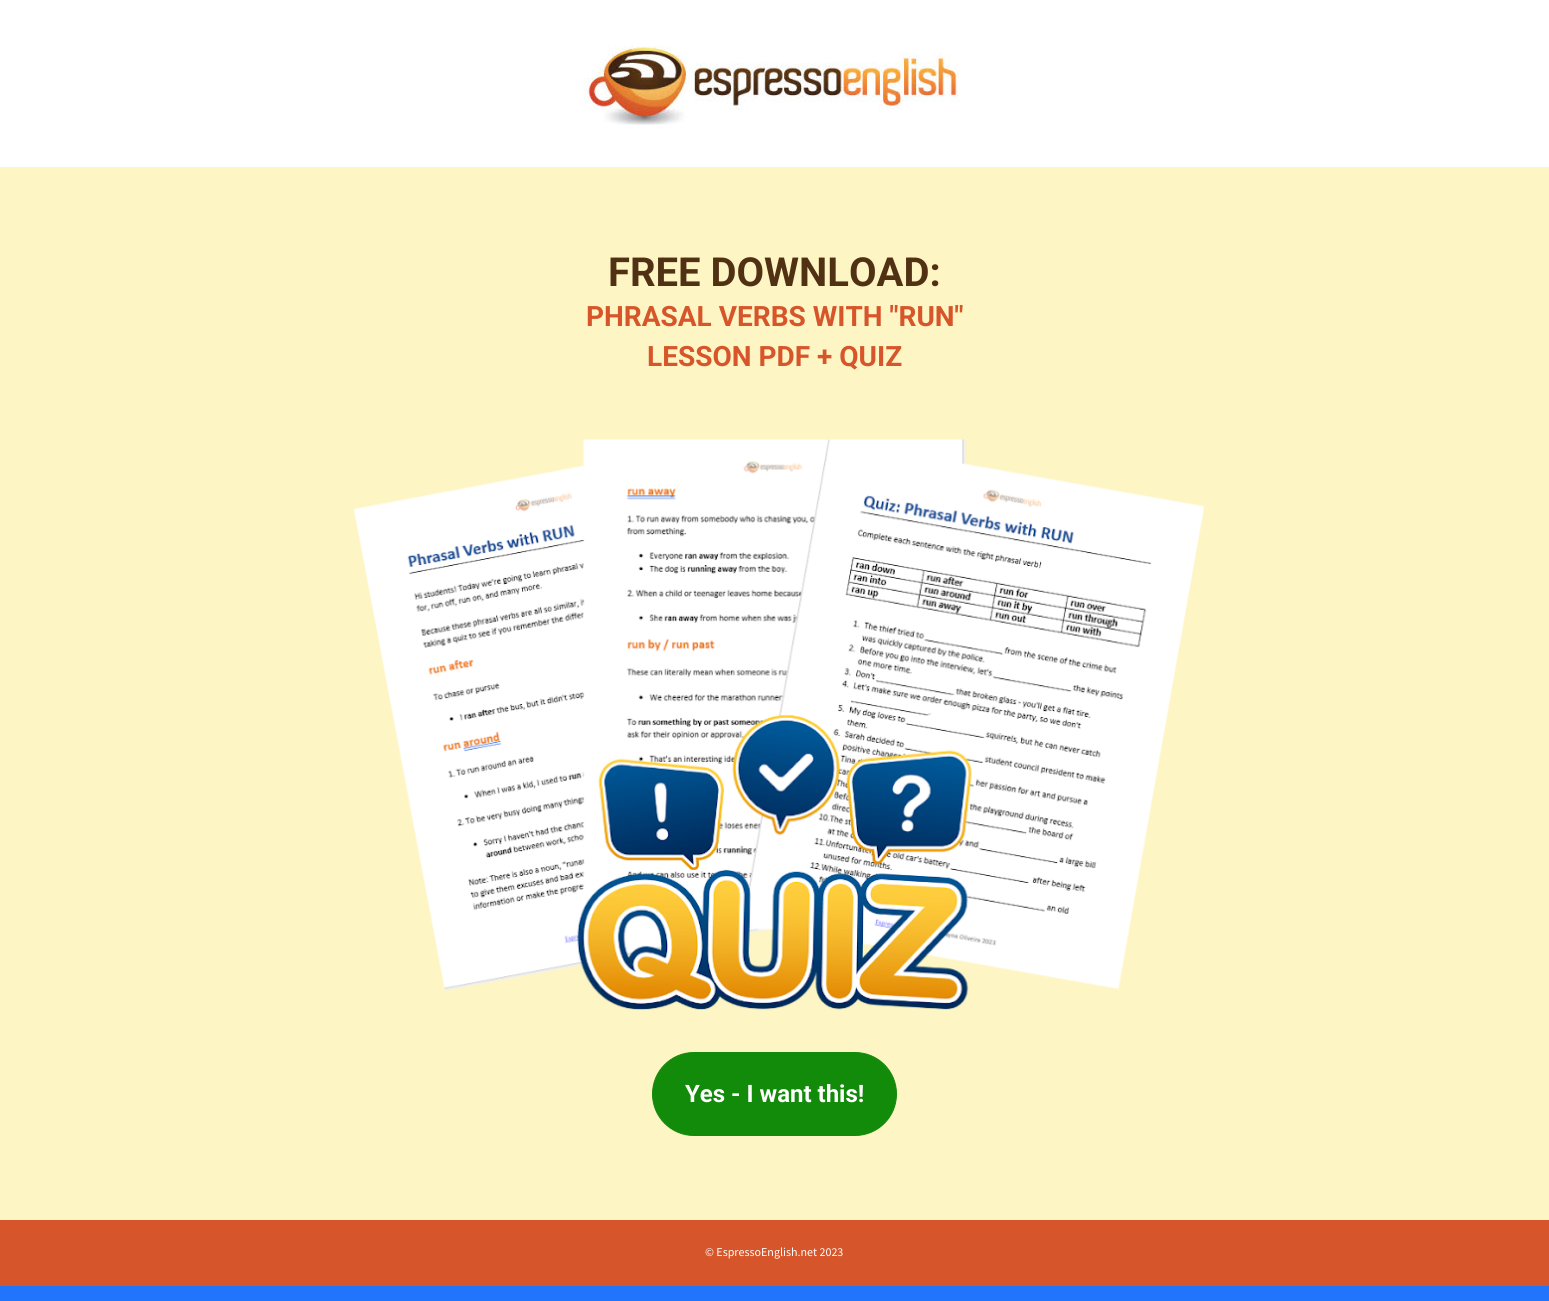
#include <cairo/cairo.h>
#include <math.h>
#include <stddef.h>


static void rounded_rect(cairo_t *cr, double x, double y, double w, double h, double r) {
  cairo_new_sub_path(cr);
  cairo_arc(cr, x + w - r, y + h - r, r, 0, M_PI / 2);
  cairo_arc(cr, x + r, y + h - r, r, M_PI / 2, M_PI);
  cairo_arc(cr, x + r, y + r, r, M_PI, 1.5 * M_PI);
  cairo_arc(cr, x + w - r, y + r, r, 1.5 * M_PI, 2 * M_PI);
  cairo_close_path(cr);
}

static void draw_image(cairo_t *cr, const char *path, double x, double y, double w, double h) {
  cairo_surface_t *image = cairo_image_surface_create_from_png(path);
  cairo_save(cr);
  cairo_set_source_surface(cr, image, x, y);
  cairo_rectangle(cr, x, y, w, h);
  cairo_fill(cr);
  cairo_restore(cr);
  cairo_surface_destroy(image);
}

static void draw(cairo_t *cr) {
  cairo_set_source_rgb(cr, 33 / 255.0, 117 / 255.0, 253 / 255.0);
  cairo_paint(cr);
  cairo_set_source_rgb(cr, 1, 1, 1);
  cairo_rectangle(cr, 0, 0, 1549, 167);
  cairo_fill(cr);
  draw_image(cr, "images/1.png", 583, 46, 376, 79);
  cairo_set_source_rgb(cr, 254 / 255.0, 245 / 255.0, 196 / 255.0);
  cairo_rectangle(cr, 0, 167, 1549, 1053);
  cairo_fill(cr);
  draw_image(cr, "images/2.png", 353, 439, 851, 571);
  cairo_set_source_rgb(cr, 18 / 255.0, 138 / 255.0, 10 / 255.0);
  rounded_rect(cr, 652.5, 1052.5, 244, 83, 41.5);
  cairo_fill_preserve(cr);
  cairo_set_line_width(cr, 1);
  cairo_stroke(cr);
  cairo_set_source_rgb(cr, 214 / 255.0, 85 / 255.0, 42 / 255.0);
  cairo_rectangle(cr, 0, 1220, 1549, 66);
  cairo_fill(cr);
  cairo_select_font_face(cr, "Roboto", CAIRO_FONT_SLANT_NORMAL, CAIRO_FONT_WEIGHT_BOLD);
  cairo_set_font_size(cr, 40);
  cairo_set_source_rgb(cr, 81 / 255.0, 49 / 255.0, 19 / 255.0);
  cairo_move_to(cr, 608, 286);
  cairo_show_text(cr, "FREE DOWNLOAD:");
  cairo_set_font_size(cr, 28);
  cairo_set_source_rgb(cr, 214 / 255.0, 85 / 255.0, 42 / 255.0);
  cairo_move_to(cr, 586, 326);
  cairo_show_text(cr, "PHRASAL VERBS WITH \"RUN\"");
  cairo_move_to(cr, 647, 366);
  cairo_show_text(cr, "LESSON PDF + QUIZ");
  cairo_set_font_size(cr, 24);
  cairo_set_source_rgb(cr, 1, 1, 1);
  cairo_move_to(cr, 685, 1102);
  cairo_show_text(cr, "Yes - I want this!");
  cairo_select_font_face(cr, "Source Sans Pro", CAIRO_FONT_SLANT_NORMAL, CAIRO_FONT_WEIGHT_NORMAL);
  cairo_set_font_size(cr, 12);
  cairo_move_to(cr, 705, 1256);
  cairo_show_text(cr, "© EspressoEnglish.net 2023");
}

int main(void) {
  cairo_surface_t *surface = cairo_image_surface_create(CAIRO_FORMAT_RGB24, 1549, 1301);
  cairo_t *cr = cairo_create(surface);
  cairo_font_options_t *options = cairo_font_options_create();
  cairo_font_options_set_hint_metrics(options, CAIRO_HINT_METRICS_OFF);
  cairo_font_options_set_hint_style(options, CAIRO_HINT_STYLE_NONE);
  cairo_set_font_options(cr, options);
  cairo_set_miter_limit(cr, 4);
  draw(cr);
  cairo_surface_write_to_png(surface, "out.png");
  cairo_font_options_destroy(options);
  cairo_destroy(cr);
  cairo_surface_destroy(surface);
  return 0;
}
